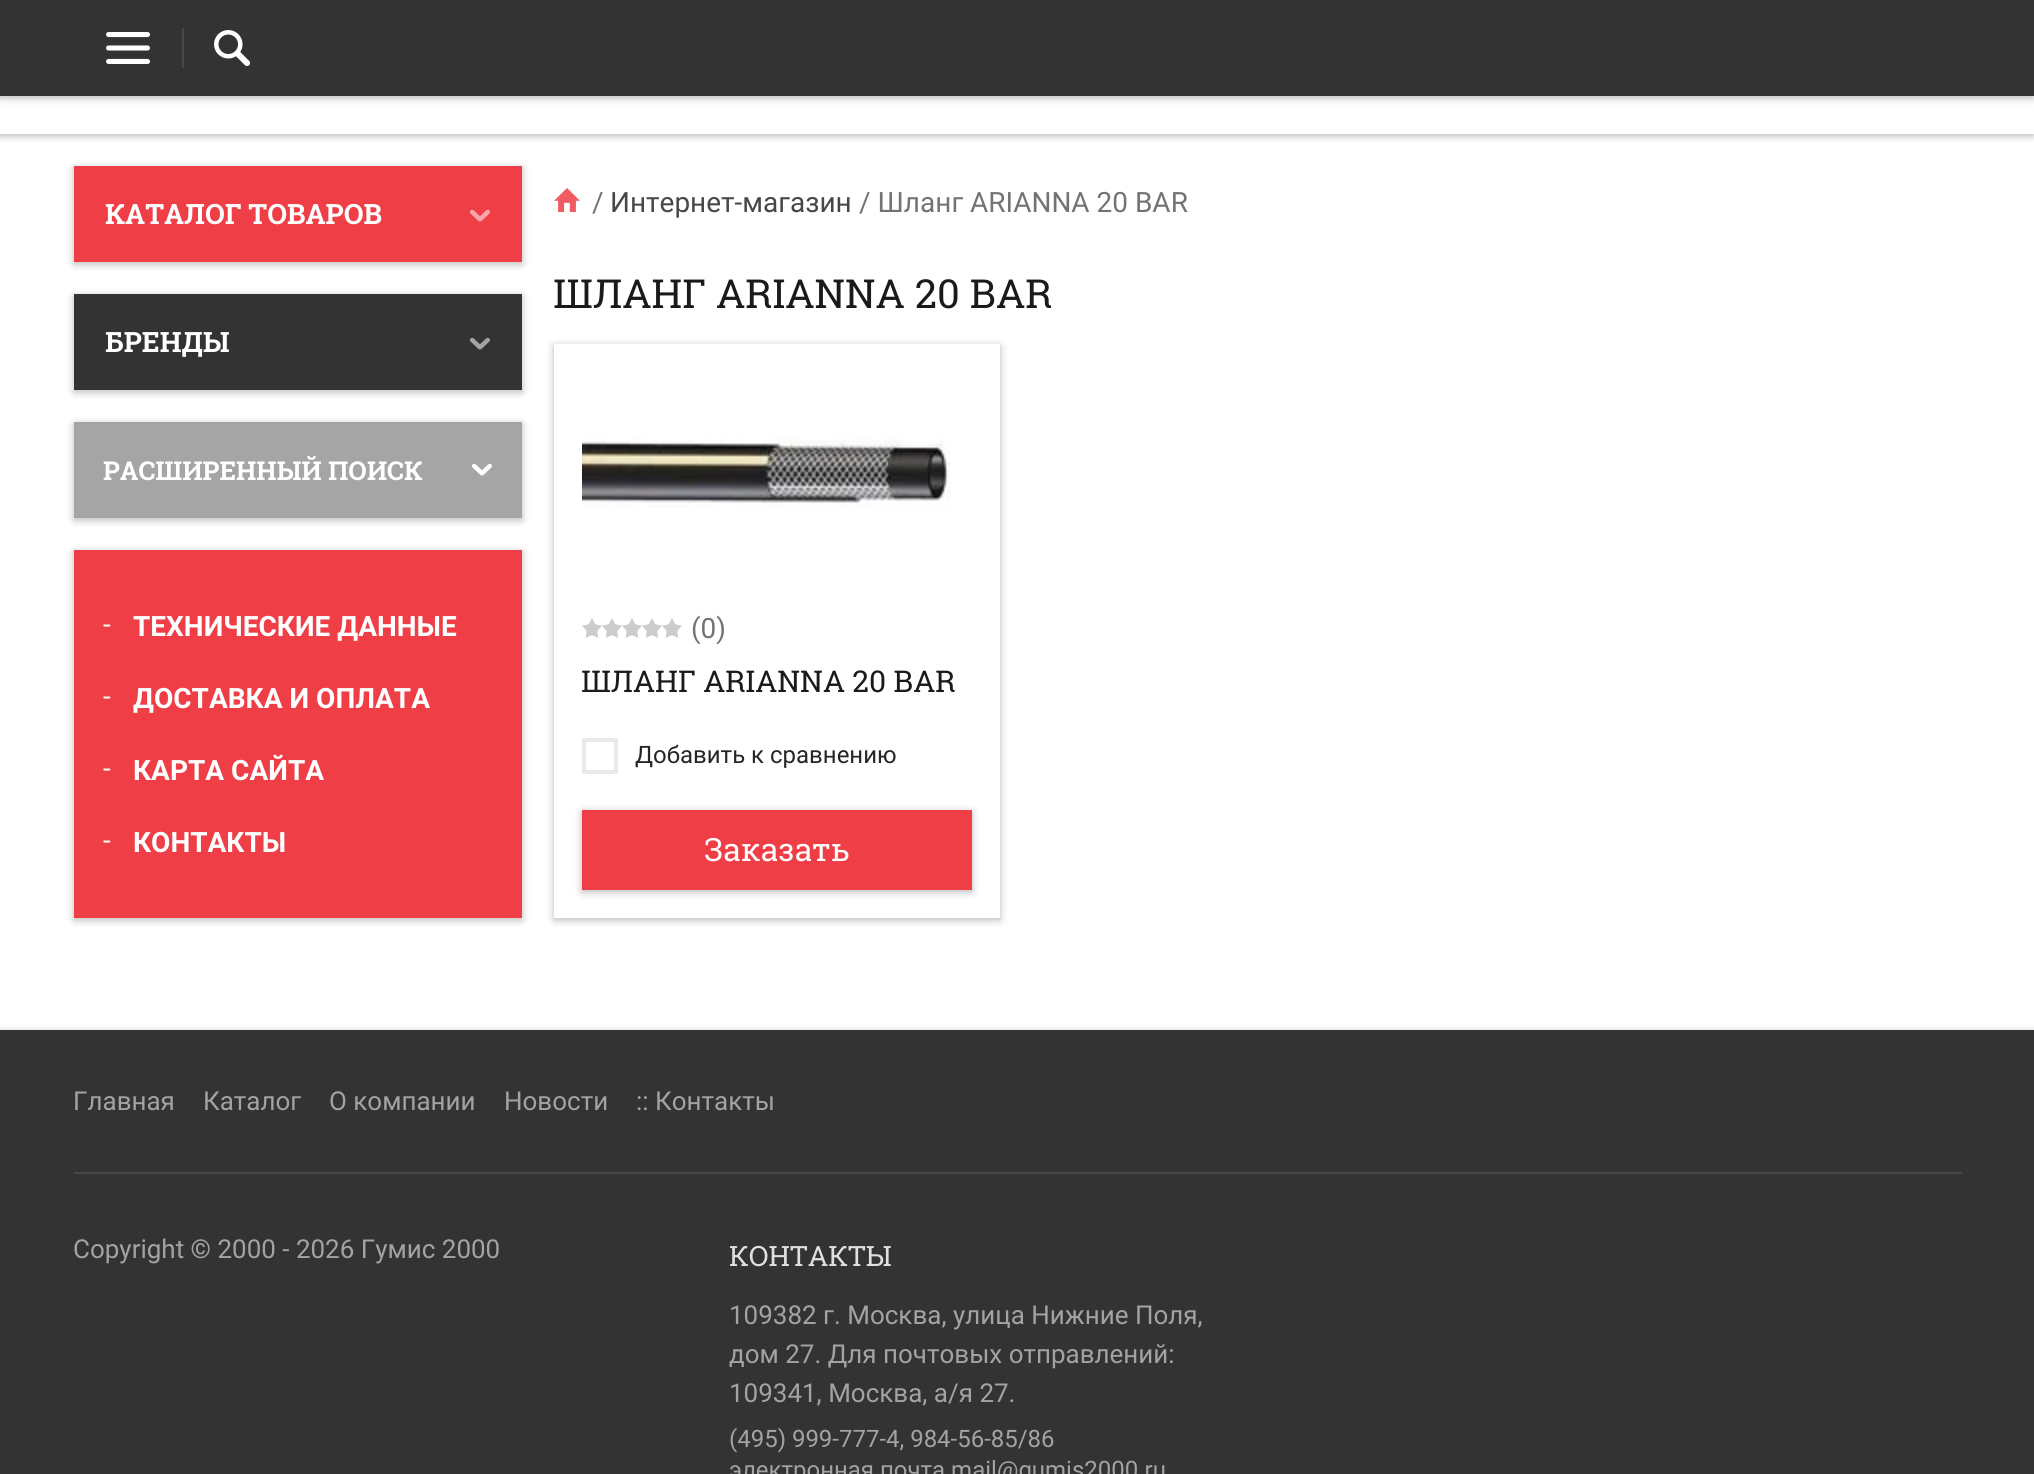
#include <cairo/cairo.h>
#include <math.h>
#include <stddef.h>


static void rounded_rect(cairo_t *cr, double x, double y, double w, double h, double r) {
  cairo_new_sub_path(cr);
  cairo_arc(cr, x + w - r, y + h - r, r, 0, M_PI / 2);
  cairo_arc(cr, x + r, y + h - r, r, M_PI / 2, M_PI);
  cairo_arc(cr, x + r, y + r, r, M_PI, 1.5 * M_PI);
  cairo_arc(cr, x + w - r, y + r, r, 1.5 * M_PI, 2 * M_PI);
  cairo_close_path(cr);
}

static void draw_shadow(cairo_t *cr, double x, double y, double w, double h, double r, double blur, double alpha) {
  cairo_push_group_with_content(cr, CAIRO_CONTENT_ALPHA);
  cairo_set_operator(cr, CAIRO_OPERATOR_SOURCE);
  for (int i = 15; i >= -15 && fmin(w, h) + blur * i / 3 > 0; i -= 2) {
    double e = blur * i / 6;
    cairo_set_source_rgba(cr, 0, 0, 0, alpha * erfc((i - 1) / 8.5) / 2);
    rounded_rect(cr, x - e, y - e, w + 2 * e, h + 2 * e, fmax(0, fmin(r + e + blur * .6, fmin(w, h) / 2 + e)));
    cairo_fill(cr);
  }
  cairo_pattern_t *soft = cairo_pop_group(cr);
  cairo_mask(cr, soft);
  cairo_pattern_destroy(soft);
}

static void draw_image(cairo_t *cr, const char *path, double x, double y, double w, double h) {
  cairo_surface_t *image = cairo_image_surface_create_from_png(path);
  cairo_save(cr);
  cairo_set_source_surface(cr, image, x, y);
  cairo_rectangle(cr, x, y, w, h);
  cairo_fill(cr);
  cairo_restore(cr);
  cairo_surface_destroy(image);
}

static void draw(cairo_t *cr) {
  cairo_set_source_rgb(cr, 1, 1, 1);
  cairo_paint(cr);
  cairo_set_source_rgb(cr, 0, 0, 0);
  draw_shadow(cr, 0, 2, 2034, 96, 0, 4, 0.28);
  cairo_save(cr);
  cairo_rectangle(cr, 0, 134, 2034, 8);
  cairo_clip(cr);
  draw_shadow(cr, 0, -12, 2034, 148, 0, 4, 0.28);
  cairo_restore(cr);
  cairo_set_source_rgb(cr, 51 / 255.0, 51 / 255.0, 51 / 255.0);
  cairo_rectangle(cr, 0, 0, 2034, 96);
  cairo_fill(cr);
  draw_image(cr, "images/1.png", 106, 32, 44, 32);
  cairo_set_source_rgb(cr, 71 / 255.0, 71 / 255.0, 71 / 255.0);
  cairo_rectangle(cr, 182, 28, 2, 40);
  cairo_fill(cr);
  draw_image(cr, "images/2.png", 214, 30, 36, 36);
  cairo_set_source_rgb(cr, 0, 0, 0);
  draw_shadow(cr, 74, 168, 448, 96, 0, 4, 0.28);
  cairo_set_source_rgb(cr, 239 / 255.0, 62 / 255.0, 70 / 255.0);
  cairo_rectangle(cr, 74, 166, 448, 96);
  cairo_fill(cr);
  draw_image(cr, "images/3.png", 469, 209, 21, 13);
  cairo_set_source_rgb(cr, 0, 0, 0);
  draw_shadow(cr, 74, 296, 448, 96, 0, 4, 0.28);
  cairo_set_source_rgb(cr, 51 / 255.0, 51 / 255.0, 51 / 255.0);
  cairo_rectangle(cr, 74, 294, 448, 96);
  cairo_fill(cr);
  draw_image(cr, "images/4.png", 469, 337, 21, 13);
  cairo_set_source_rgb(cr, 0, 0, 0);
  draw_shadow(cr, 74, 424, 448, 96, 0, 4, 0.28);
  cairo_set_source_rgb(cr, 165 / 255.0, 165 / 255.0, 165 / 255.0);
  cairo_rectangle(cr, 74, 422, 448, 96);
  cairo_fill(cr);
  draw_image(cr, "images/5.png", 471, 463, 21, 13);
  cairo_set_source_rgb(cr, 0, 0, 0);
  draw_shadow(cr, 74, 552, 448, 368, 0, 4, 0.28);
  cairo_set_source_rgb(cr, 239 / 255.0, 62 / 255.0, 70 / 255.0);
  cairo_rectangle(cr, 74, 550, 448, 368);
  cairo_fill(cr);
  draw_image(cr, "images/6.png", 554, 188, 26, 24);
  cairo_save(cr);
  cairo_set_fill_rule(cr, CAIRO_FILL_RULE_EVEN_ODD);
  cairo_new_path(cr);
  cairo_move_to(cr, 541, 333);
  cairo_line_to(cr, 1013, 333);
  cairo_line_to(cr, 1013, 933);
  cairo_line_to(cr, 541, 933);
  cairo_close_path(cr);
  cairo_move_to(cr, 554, 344);
  cairo_line_to(cr, 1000, 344);
  cairo_line_to(cr, 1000, 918);
  cairo_line_to(cr, 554, 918);
  cairo_close_path(cr);
  cairo_clip(cr);
  cairo_set_source_rgb(cr, 0, 0, 0);
  draw_shadow(cr, 554, 346, 446, 574, 0, 4, 0.28);
  cairo_restore(cr);
  draw_image(cr, "images/7.png", 582, 437, 369, 71);
  draw_image(cr, "images/8.png", 582, 618, 100, 20);
  cairo_rectangle(cr, 584, 740, 32, 32);
  cairo_set_source_rgb(cr, 233 / 255.0, 233 / 255.0, 233 / 255.0);
  cairo_set_line_width(cr, 4);
  cairo_stroke(cr);
  cairo_set_source_rgb(cr, 0, 0, 0);
  draw_shadow(cr, 582, 812, 390, 80, 0, 4, 0.28);
  cairo_set_source_rgb(cr, 239 / 255.0, 62 / 255.0, 70 / 255.0);
  cairo_rectangle(cr, 582, 810, 390, 80);
  cairo_fill(cr);
  cairo_set_source_rgb(cr, 0, 0, 0);
  draw_shadow(cr, 0, 1032, 2034, 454, 0, 4, 0.28);
  cairo_set_source_rgb(cr, 51 / 255.0, 51 / 255.0, 51 / 255.0);
  cairo_rectangle(cr, 0, 1030, 2034, 444);
  cairo_fill(cr);
  cairo_set_source_rgb(cr, 71 / 255.0, 71 / 255.0, 71 / 255.0);
  cairo_rectangle(cr, 74, 1172, 1888, 2);
  cairo_fill(cr);
  cairo_select_font_face(cr, "Roboto Slab", CAIRO_FONT_SLANT_NORMAL, CAIRO_FONT_WEIGHT_BOLD);
  cairo_set_font_size(cr, 28);
  cairo_set_source_rgb(cr, 1, 1, 1);
  cairo_move_to(cr, 105, 224);
  cairo_show_text(cr, "КАТАЛОГ ТОВАРОВ");
  cairo_move_to(cr, 105, 352);
  cairo_show_text(cr, "БРЕНДЫ");
  cairo_set_font_size(cr, 26);
  cairo_move_to(cr, 103, 480);
  cairo_show_text(cr, "РАСШИРЕННЫЙ ПОИСК");
  cairo_select_font_face(cr, "Roboto", CAIRO_FONT_SLANT_NORMAL, CAIRO_FONT_WEIGHT_NORMAL);
  cairo_set_font_size(cr, 28);
  cairo_move_to(cr, 103, 634);
  cairo_show_text(cr, "-");
  cairo_select_font_face(cr, "Roboto", CAIRO_FONT_SLANT_NORMAL, CAIRO_FONT_WEIGHT_BOLD);
  cairo_move_to(cr, 133, 636);
  cairo_show_text(cr, "ТЕХНИЧЕСКИЕ ДАННЫЕ");
  cairo_select_font_face(cr, "Roboto", CAIRO_FONT_SLANT_NORMAL, CAIRO_FONT_WEIGHT_NORMAL);
  cairo_move_to(cr, 103, 706);
  cairo_show_text(cr, "-");
  cairo_select_font_face(cr, "Roboto", CAIRO_FONT_SLANT_NORMAL, CAIRO_FONT_WEIGHT_BOLD);
  cairo_move_to(cr, 133, 708);
  cairo_show_text(cr, "ДОСТАВКА И ОПЛАТА");
  cairo_select_font_face(cr, "Roboto", CAIRO_FONT_SLANT_NORMAL, CAIRO_FONT_WEIGHT_NORMAL);
  cairo_move_to(cr, 103, 778);
  cairo_show_text(cr, "-");
  cairo_select_font_face(cr, "Roboto", CAIRO_FONT_SLANT_NORMAL, CAIRO_FONT_WEIGHT_BOLD);
  cairo_move_to(cr, 133, 780);
  cairo_show_text(cr, "КАРТА САЙТА");
  cairo_select_font_face(cr, "Roboto", CAIRO_FONT_SLANT_NORMAL, CAIRO_FONT_WEIGHT_NORMAL);
  cairo_move_to(cr, 103, 850);
  cairo_show_text(cr, "-");
  cairo_select_font_face(cr, "Roboto", CAIRO_FONT_SLANT_NORMAL, CAIRO_FONT_WEIGHT_BOLD);
  cairo_move_to(cr, 133, 852);
  cairo_show_text(cr, "КОНТАКТЫ");
  cairo_select_font_face(cr, "Roboto", CAIRO_FONT_SLANT_NORMAL, CAIRO_FONT_WEIGHT_NORMAL);
  cairo_set_source_rgb(cr, 115 / 255.0, 115 / 255.0, 115 / 255.0);
  cairo_move_to(cr, 592, 212);
  cairo_show_text(cr, "/");
  cairo_set_source_rgb(cr, 71 / 255.0, 71 / 255.0, 71 / 255.0);
  cairo_move_to(cr, 610, 212);
  cairo_show_text(cr, "Интернет-магазин");
  cairo_set_source_rgb(cr, 115 / 255.0, 115 / 255.0, 115 / 255.0);
  cairo_move_to(cr, 859, 212);
  cairo_show_text(cr, "/ Шланг ARIANNA 20 BAR");
  cairo_select_font_face(cr, "Roboto Slab", CAIRO_FONT_SLANT_NORMAL, CAIRO_FONT_WEIGHT_NORMAL);
  cairo_set_font_size(cr, 40);
  cairo_set_source_rgb(cr, 26 / 255.0, 26 / 255.0, 26 / 255.0);
  cairo_move_to(cr, 553, 308);
  cairo_show_text(cr, "ШЛАНГ ARIANNA 20 BAR");
  cairo_select_font_face(cr, "Roboto", CAIRO_FONT_SLANT_NORMAL, CAIRO_FONT_WEIGHT_NORMAL);
  cairo_set_font_size(cr, 28);
  cairo_set_source_rgb(cr, 115 / 255.0, 115 / 255.0, 115 / 255.0);
  cairo_move_to(cr, 691, 638);
  cairo_show_text(cr, "(0)");
  cairo_select_font_face(cr, "Roboto Slab", CAIRO_FONT_SLANT_NORMAL, CAIRO_FONT_WEIGHT_NORMAL);
  cairo_set_font_size(cr, 30);
  cairo_set_source_rgb(cr, 26 / 255.0, 26 / 255.0, 26 / 255.0);
  cairo_move_to(cr, 581, 692);
  cairo_show_text(cr, "ШЛАНГ ARIANNA 20 BAR");
  cairo_select_font_face(cr, "Roboto", CAIRO_FONT_SLANT_NORMAL, CAIRO_FONT_WEIGHT_NORMAL);
  cairo_set_font_size(cr, 24);
  cairo_set_source_rgb(cr, 38 / 255.0, 38 / 255.0, 38 / 255.0);
  cairo_move_to(cr, 635, 763);
  cairo_show_text(cr, "Добавить к сравнению");
  cairo_select_font_face(cr, "Roboto Slab", CAIRO_FONT_SLANT_NORMAL, CAIRO_FONT_WEIGHT_NORMAL);
  cairo_set_font_size(cr, 32);
  cairo_set_source_rgb(cr, 1, 1, 1);
  cairo_move_to(cr, 704, 861);
  cairo_show_text(cr, "Заказать");
  cairo_select_font_face(cr, "Roboto", CAIRO_FONT_SLANT_NORMAL, CAIRO_FONT_WEIGHT_NORMAL);
  cairo_set_font_size(cr, 26);
  cairo_set_source_rgb(cr, 163 / 255.0, 163 / 255.0, 163 / 255.0);
  cairo_move_to(cr, 73, 1110);
  cairo_show_text(cr, "Главная");
  cairo_move_to(cr, 203, 1110);
  cairo_show_text(cr, "Каталог");
  cairo_move_to(cr, 329, 1110);
  cairo_show_text(cr, "О компании");
  cairo_move_to(cr, 504, 1110);
  cairo_show_text(cr, "Новости");
  cairo_move_to(cr, 636, 1110);
  cairo_show_text(cr, ":: Контакты");
  cairo_move_to(cr, 73, 1258);
  cairo_show_text(cr, "Copyright © 2000 - 2026 Гумис 2000");
  cairo_select_font_face(cr, "Roboto Slab", CAIRO_FONT_SLANT_NORMAL, CAIRO_FONT_WEIGHT_NORMAL);
  cairo_set_font_size(cr, 28);
  cairo_set_source_rgb(cr, 224 / 255.0, 224 / 255.0, 224 / 255.0);
  cairo_move_to(cr, 729, 1266);
  cairo_show_text(cr, "КОНТАКТЫ");
  cairo_select_font_face(cr, "Roboto", CAIRO_FONT_SLANT_NORMAL, CAIRO_FONT_WEIGHT_NORMAL);
  cairo_set_font_size(cr, 26);
  cairo_set_source_rgb(cr, 163 / 255.0, 163 / 255.0, 163 / 255.0);
  cairo_move_to(cr, 729, 1324);
  cairo_show_text(cr, "109382 г. Москва, улица Нижние Поля,");
  cairo_move_to(cr, 729, 1363);
  cairo_show_text(cr, "дом 27. Для почтовых отправлений:");
  cairo_move_to(cr, 729, 1402);
  cairo_show_text(cr, "109341, Москва, а/я 27.");
  cairo_set_font_size(cr, 24);
  cairo_move_to(cr, 729, 1447);
  cairo_show_text(cr, "(495) 999-777-4, 984-56-85/86");
  cairo_move_to(cr, 729, 1478);
  cairo_show_text(cr, "электронная почта mail@gumis2000.ru");
}

int main(void) {
  cairo_surface_t *surface = cairo_image_surface_create(CAIRO_FORMAT_RGB24, 2034, 1474);
  cairo_t *cr = cairo_create(surface);
  cairo_font_options_t *options = cairo_font_options_create();
  cairo_font_options_set_hint_metrics(options, CAIRO_HINT_METRICS_OFF);
  cairo_font_options_set_hint_style(options, CAIRO_HINT_STYLE_NONE);
  cairo_set_font_options(cr, options);
  cairo_set_miter_limit(cr, 4);
  draw(cr);
  cairo_surface_write_to_png(surface, "out.png");
  cairo_font_options_destroy(options);
  cairo_destroy(cr);
  cairo_surface_destroy(surface);
  return 0;
}
